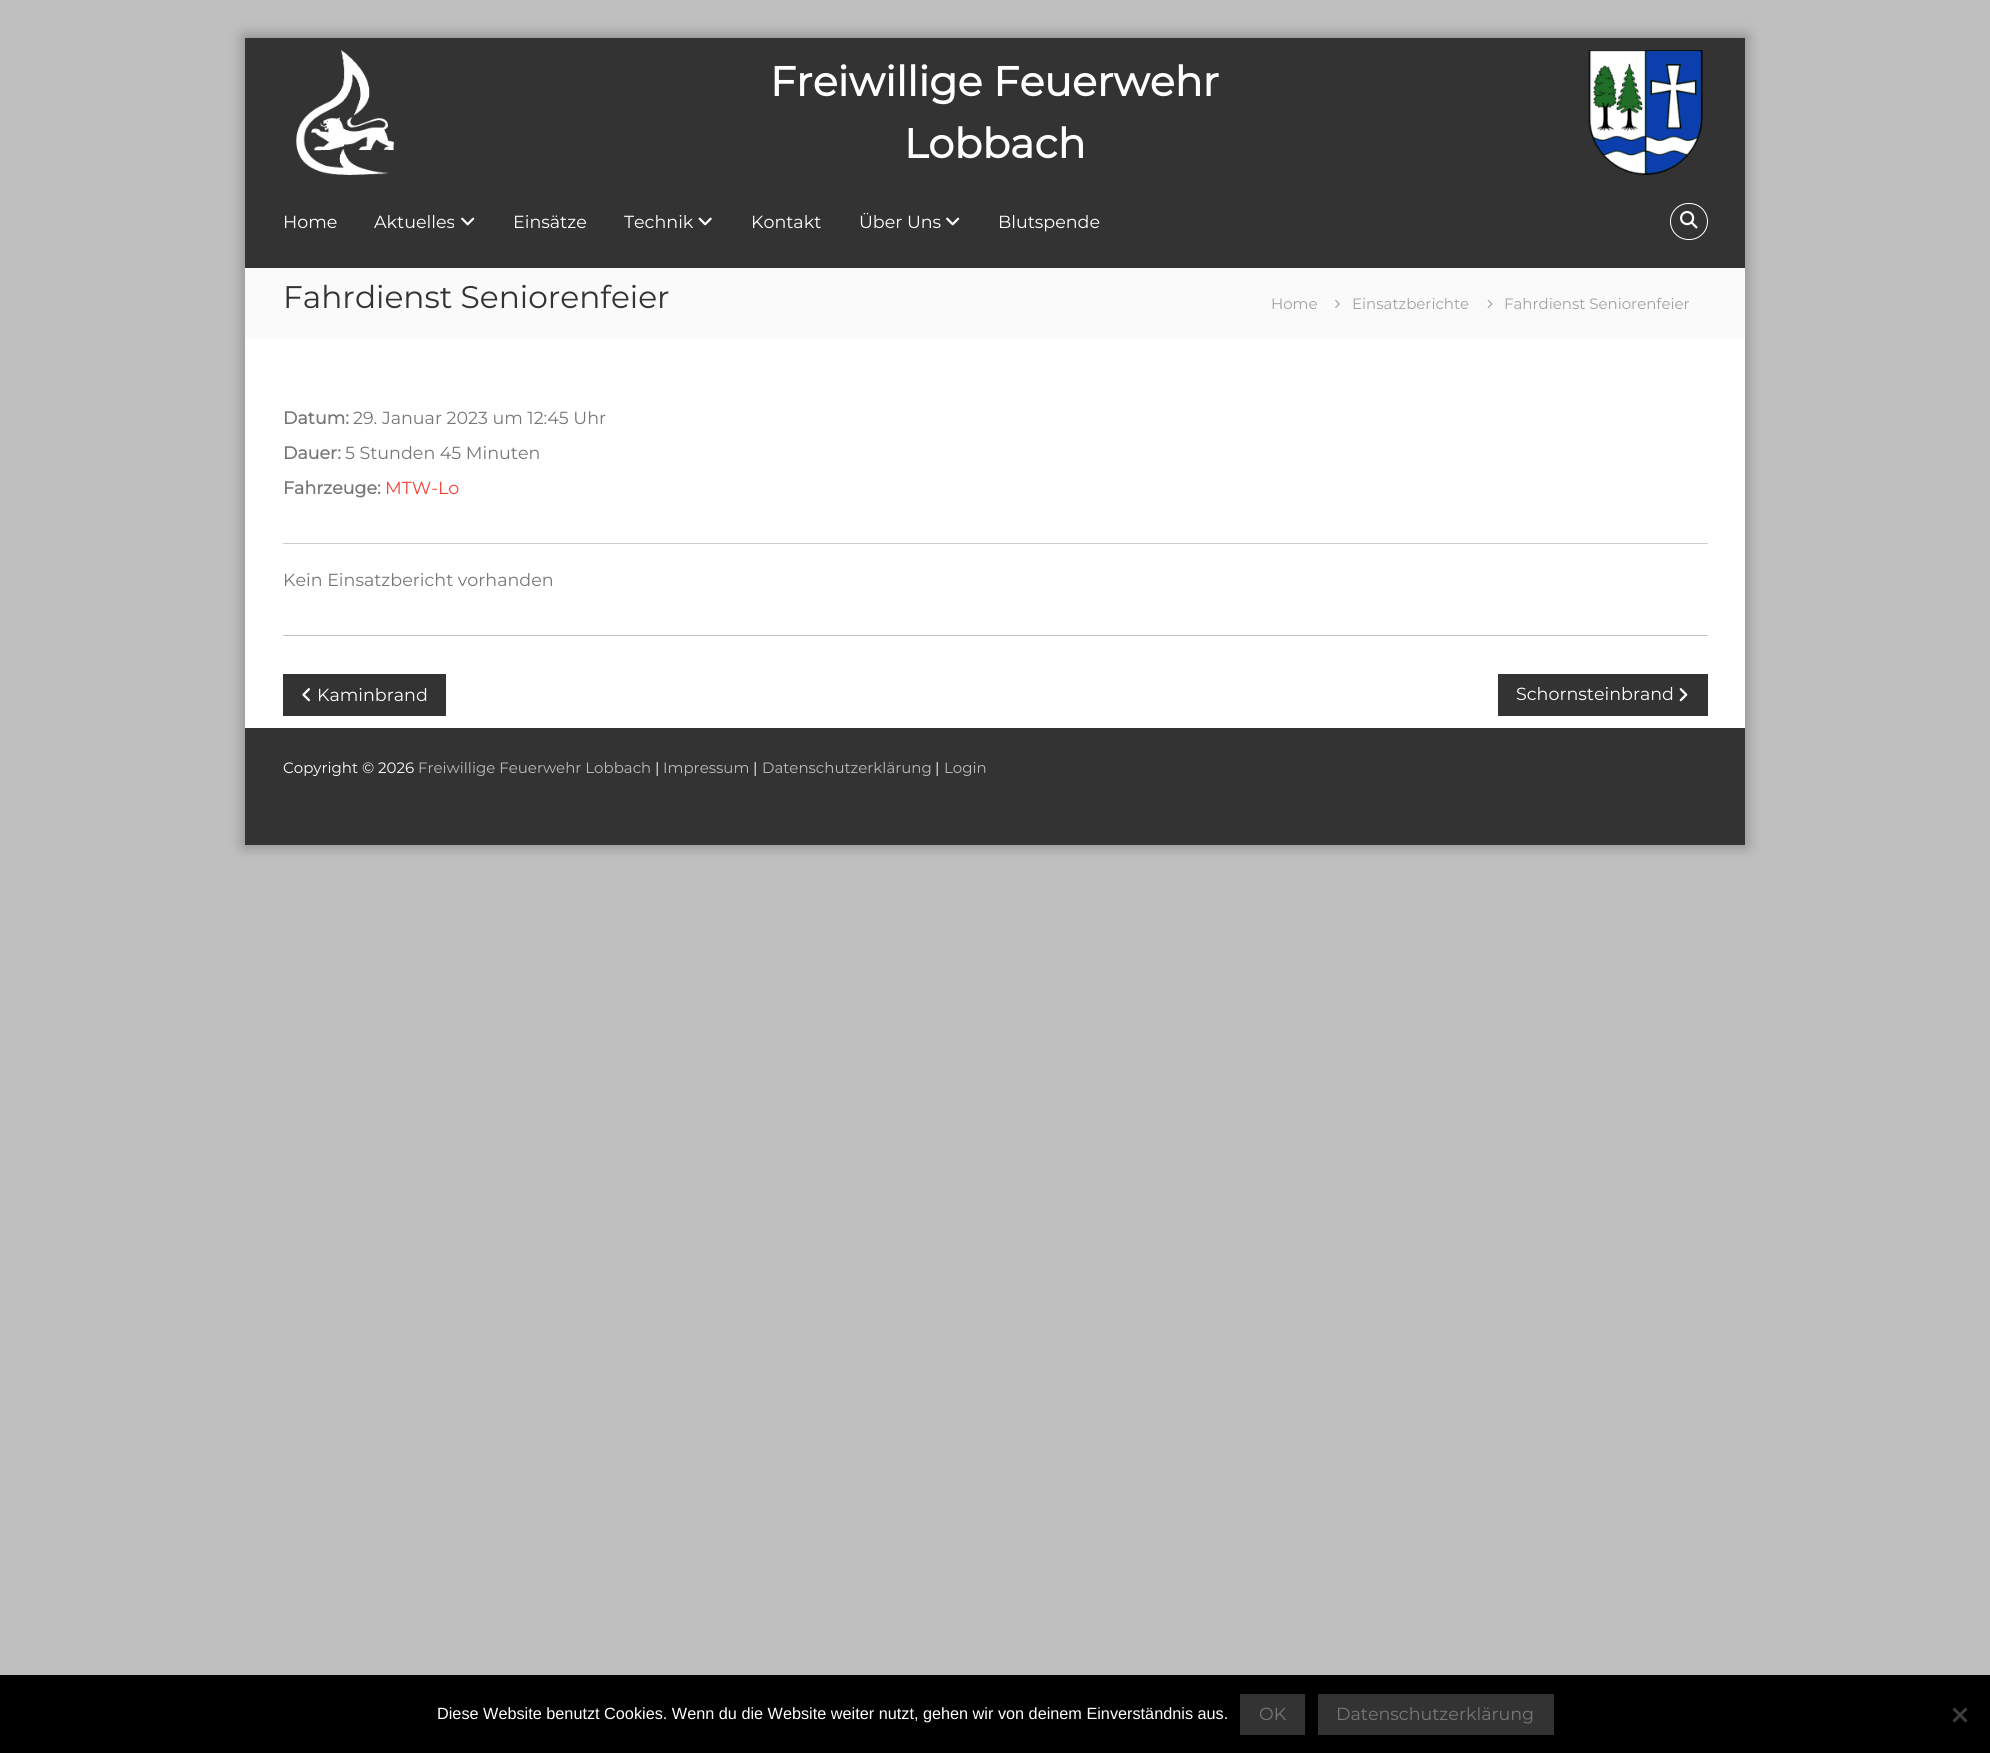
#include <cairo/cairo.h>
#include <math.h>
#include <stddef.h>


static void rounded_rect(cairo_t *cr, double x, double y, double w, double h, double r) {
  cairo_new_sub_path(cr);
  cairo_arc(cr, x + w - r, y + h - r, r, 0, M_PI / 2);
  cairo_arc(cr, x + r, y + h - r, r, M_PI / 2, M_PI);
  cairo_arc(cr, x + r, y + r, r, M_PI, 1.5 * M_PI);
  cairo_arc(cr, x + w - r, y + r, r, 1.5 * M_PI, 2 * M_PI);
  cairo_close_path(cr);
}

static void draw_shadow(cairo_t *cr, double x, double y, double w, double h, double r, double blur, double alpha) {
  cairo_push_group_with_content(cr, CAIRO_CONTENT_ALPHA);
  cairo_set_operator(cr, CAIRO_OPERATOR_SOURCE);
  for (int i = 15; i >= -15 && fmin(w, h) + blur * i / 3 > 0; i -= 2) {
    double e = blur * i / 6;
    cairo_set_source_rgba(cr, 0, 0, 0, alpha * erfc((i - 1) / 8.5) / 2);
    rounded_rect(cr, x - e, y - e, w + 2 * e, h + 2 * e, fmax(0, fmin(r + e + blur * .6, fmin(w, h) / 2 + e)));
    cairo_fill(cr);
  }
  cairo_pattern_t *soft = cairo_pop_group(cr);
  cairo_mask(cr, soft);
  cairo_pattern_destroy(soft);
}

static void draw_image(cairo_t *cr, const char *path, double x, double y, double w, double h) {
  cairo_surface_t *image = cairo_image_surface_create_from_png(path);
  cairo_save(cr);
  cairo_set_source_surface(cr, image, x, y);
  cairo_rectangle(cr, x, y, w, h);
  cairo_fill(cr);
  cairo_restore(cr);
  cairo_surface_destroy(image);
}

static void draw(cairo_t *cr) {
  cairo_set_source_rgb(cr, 191 / 255.0, 191 / 255.0, 191 / 255.0);
  cairo_paint(cr);
  cairo_set_source_rgb(cr, 0, 0, 0);
  draw_shadow(cr, 244, 36, 1502, 810, 0, 7.5, 0.3);
  cairo_set_source_rgb(cr, 1, 1, 1);
  cairo_rectangle(cr, 245, 338, 1500, 390);
  cairo_fill(cr);
  cairo_set_source_rgb(cr, 51 / 255.0, 51 / 255.0, 51 / 255.0);
  cairo_rectangle(cr, 245, 38, 1500, 230);
  cairo_fill(cr);
  draw_image(cr, "images/1.png", 296, 50, 98, 125);
  draw_image(cr, "images/2.png", 1588, 50, 115, 125);
  draw_image(cr, "images/3.png", 461, 217, 14, 9);
  draw_image(cr, "images/4.png", 698, 217, 14, 9);
  draw_image(cr, "images/3.png", 946, 217, 14, 9);
  rounded_rect(cr, 1670.5, 203.5, 37, 36, 18);
  cairo_set_source_rgb(cr, 1, 1, 1);
  cairo_set_line_width(cr, 1);
  cairo_stroke(cr);
  draw_image(cr, "images/5.png", 1680, 210, 18, 19);
  cairo_set_source_rgb(cr, 250 / 255.0, 250 / 255.0, 250 / 255.0);
  cairo_rectangle(cr, 245, 268, 1500, 70);
  cairo_fill(cr);
  draw_image(cr, "images/6.png", 1335, 299, 5, 9);
  draw_image(cr, "images/7.png", 1487, 299, 6, 9);
  cairo_set_source_rgb(cr, 197 / 255.0, 197 / 255.0, 197 / 255.0);
  cairo_rectangle(cr, 283, 635, 1425, 1);
  cairo_fill(cr);
  cairo_set_source_rgb(cr, 204 / 255.0, 204 / 255.0, 204 / 255.0);
  cairo_rectangle(cr, 283, 543, 1425, 1);
  cairo_fill(cr);
  cairo_set_source_rgb(cr, 51 / 255.0, 51 / 255.0, 51 / 255.0);
  cairo_rectangle(cr, 283, 674, 163, 42);
  cairo_fill(cr);
  draw_image(cr, "images/8.png", 302, 688, 8, 14);
  cairo_rectangle(cr, 1498, 674, 210, 42);
  cairo_fill(cr);
  draw_image(cr, "images/9.png", 1679, 688, 9, 14);
  cairo_rectangle(cr, 245, 728, 1500, 117);
  cairo_fill(cr);
  cairo_set_source_rgb(cr, 0, 0, 0);
  cairo_rectangle(cr, 0, 1675, 1990, 78);
  cairo_fill(cr);
  cairo_set_source_rgb(cr, 51 / 255.0, 51 / 255.0, 51 / 255.0);
  cairo_rectangle(cr, 1240, 1694, 65, 41);
  cairo_fill(cr);
  cairo_rectangle(cr, 1318, 1694, 236, 41);
  cairo_fill(cr);
  cairo_set_source_rgb(cr, 64 / 255.0, 64 / 255.0, 64 / 255.0);
  cairo_new_path(cr);
  cairo_move_to(cr, 1965.5, 1707.5);
  cairo_line_to(cr, 1967.5, 1709.5);
  cairo_line_to(cr, 1954.5, 1722.5);
  cairo_line_to(cr, 1952.5, 1720.5);
  cairo_close_path(cr);
  cairo_fill(cr);
  cairo_new_path(cr);
  cairo_move_to(cr, 1952.5, 1709.5);
  cairo_line_to(cr, 1954.5, 1707.5);
  cairo_line_to(cr, 1967.5, 1720.5);
  cairo_line_to(cr, 1965.5, 1722.5);
  cairo_close_path(cr);
  cairo_fill(cr);
  cairo_select_font_face(cr, "Montserrat", CAIRO_FONT_SLANT_NORMAL, CAIRO_FONT_WEIGHT_BOLD);
  cairo_set_font_size(cr, 41.25);
  cairo_set_source_rgb(cr, 1, 1, 1);
  cairo_move_to(cr, 770, 96);
  cairo_show_text(cr, "Freiwillige Feuerwehr");
  cairo_move_to(cr, 904, 158);
  cairo_show_text(cr, "Lobbach");
  cairo_select_font_face(cr, "Montserrat Thin", CAIRO_FONT_SLANT_NORMAL, CAIRO_FONT_WEIGHT_NORMAL);
  cairo_set_font_size(cr, 17.5);
  cairo_move_to(cr, 283, 228);
  cairo_show_text(cr, "Home");
  cairo_move_to(cr, 374, 228);
  cairo_show_text(cr, "Aktuelles");
  cairo_move_to(cr, 513, 228);
  cairo_show_text(cr, "Einsätze");
  cairo_move_to(cr, 624, 228);
  cairo_show_text(cr, "Technik");
  cairo_move_to(cr, 751, 228);
  cairo_show_text(cr, "Kontakt");
  cairo_move_to(cr, 859, 228);
  cairo_show_text(cr, "Über Uns");
  cairo_move_to(cr, 998, 228);
  cairo_show_text(cr, "Blutspende");
  cairo_set_font_size(cr, 31.25);
  cairo_set_source_rgb(cr, 51 / 255.0, 51 / 255.0, 51 / 255.0);
  cairo_move_to(cr, 283, 308);
  cairo_show_text(cr, "Fahrdienst Seniorenfeier");
  cairo_set_font_size(cr, 15);
  cairo_set_source_rgb(cr, 161 / 255.0, 161 / 255.0, 161 / 255.0);
  cairo_move_to(cr, 1271, 309);
  cairo_show_text(cr, "Home");
  cairo_move_to(cr, 1352, 309);
  cairo_show_text(cr, "Einsatzberichte");
  cairo_move_to(cr, 1504, 309);
  cairo_show_text(cr, "Fahrdienst Seniorenfeier");
  cairo_select_font_face(cr, "Montserrat", CAIRO_FONT_SLANT_NORMAL, CAIRO_FONT_WEIGHT_BOLD);
  cairo_set_font_size(cr, 17.5);
  cairo_set_source_rgb(cr, 119 / 255.0, 119 / 255.0, 119 / 255.0);
  cairo_move_to(cr, 283, 424);
  cairo_show_text(cr, "Datum:");
  cairo_select_font_face(cr, "Montserrat Thin", CAIRO_FONT_SLANT_NORMAL, CAIRO_FONT_WEIGHT_NORMAL);
  cairo_move_to(cr, 353, 424);
  cairo_show_text(cr, "29. Januar 2023 um 12:45 Uhr");
  cairo_select_font_face(cr, "Montserrat", CAIRO_FONT_SLANT_NORMAL, CAIRO_FONT_WEIGHT_BOLD);
  cairo_move_to(cr, 283, 459);
  cairo_show_text(cr, "Dauer:");
  cairo_select_font_face(cr, "Montserrat Thin", CAIRO_FONT_SLANT_NORMAL, CAIRO_FONT_WEIGHT_NORMAL);
  cairo_move_to(cr, 345, 459);
  cairo_show_text(cr, "5 Stunden 45 Minuten");
  cairo_select_font_face(cr, "Montserrat", CAIRO_FONT_SLANT_NORMAL, CAIRO_FONT_WEIGHT_BOLD);
  cairo_move_to(cr, 283, 494);
  cairo_show_text(cr, "Fahrzeuge:");
  cairo_select_font_face(cr, "Montserrat Thin", CAIRO_FONT_SLANT_NORMAL, CAIRO_FONT_WEIGHT_NORMAL);
  cairo_set_source_rgb(cr, 245 / 255.0, 67 / 255.0, 55 / 255.0);
  cairo_move_to(cr, 385, 494);
  cairo_show_text(cr, "MTW-Lo");
  cairo_set_source_rgb(cr, 119 / 255.0, 119 / 255.0, 119 / 255.0);
  cairo_move_to(cr, 283, 586);
  cairo_show_text(cr, "Kein Einsatzbericht vorhanden");
  cairo_set_source_rgb(cr, 1, 1, 1);
  cairo_move_to(cr, 317, 701);
  cairo_show_text(cr, "Kaminbrand");
  cairo_move_to(cr, 1516, 700);
  cairo_show_text(cr, "Schornsteinbrand");
  cairo_set_font_size(cr, 15);
  cairo_move_to(cr, 283, 773);
  cairo_show_text(cr, "Copyright © 2026");
  cairo_set_source_rgb(cr, 188 / 255.0, 186 / 255.0, 186 / 255.0);
  cairo_move_to(cr, 418, 773);
  cairo_show_text(cr, "Freiwillige Feuerwehr Lobbach");
  cairo_set_source_rgb(cr, 1, 1, 1);
  cairo_move_to(cr, 655, 773);
  cairo_show_text(cr, "|");
  cairo_set_source_rgb(cr, 188 / 255.0, 186 / 255.0, 186 / 255.0);
  cairo_move_to(cr, 663, 773);
  cairo_show_text(cr, "Impressum");
  cairo_set_source_rgb(cr, 1, 1, 1);
  cairo_move_to(cr, 753, 773);
  cairo_show_text(cr, "|");
  cairo_set_source_rgb(cr, 188 / 255.0, 186 / 255.0, 186 / 255.0);
  cairo_move_to(cr, 762, 773);
  cairo_show_text(cr, "Datenschutzerklärung");
  cairo_set_source_rgb(cr, 1, 1, 1);
  cairo_move_to(cr, 935, 773);
  cairo_show_text(cr, "|");
  cairo_set_source_rgb(cr, 188 / 255.0, 186 / 255.0, 186 / 255.0);
  cairo_move_to(cr, 944, 773);
  cairo_show_text(cr, "Login");
  cairo_select_font_face(cr, "Liberation Sans", CAIRO_FONT_SLANT_NORMAL, CAIRO_FONT_WEIGHT_NORMAL);
  cairo_set_font_size(cr, 16.25);
  cairo_set_source_rgb(cr, 1, 1, 1);
  cairo_move_to(cr, 437, 1719);
  cairo_show_text(cr, "Diese Website benutzt Cookies. Wenn du die Website weiter nutzt, gehen wir von deinem Einverständnis aus.");
  cairo_select_font_face(cr, "Montserrat Thin", CAIRO_FONT_SLANT_NORMAL, CAIRO_FONT_WEIGHT_NORMAL);
  cairo_set_font_size(cr, 17.5);
  cairo_set_source_rgb(cr, 119 / 255.0, 119 / 255.0, 119 / 255.0);
  cairo_move_to(cr, 1259, 1720);
  cairo_show_text(cr, "OK");
  cairo_move_to(cr, 1336, 1720);
  cairo_show_text(cr, "Datenschutzerklärung");
}

int main(void) {
  cairo_surface_t *surface = cairo_image_surface_create(CAIRO_FORMAT_RGB24, 1990, 1753);
  cairo_t *cr = cairo_create(surface);
  cairo_font_options_t *options = cairo_font_options_create();
  cairo_font_options_set_hint_metrics(options, CAIRO_HINT_METRICS_OFF);
  cairo_font_options_set_hint_style(options, CAIRO_HINT_STYLE_NONE);
  cairo_set_font_options(cr, options);
  cairo_set_miter_limit(cr, 4);
  draw(cr);
  cairo_surface_write_to_png(surface, "out.png");
  cairo_font_options_destroy(options);
  cairo_destroy(cr);
  cairo_surface_destroy(surface);
  return 0;
}
